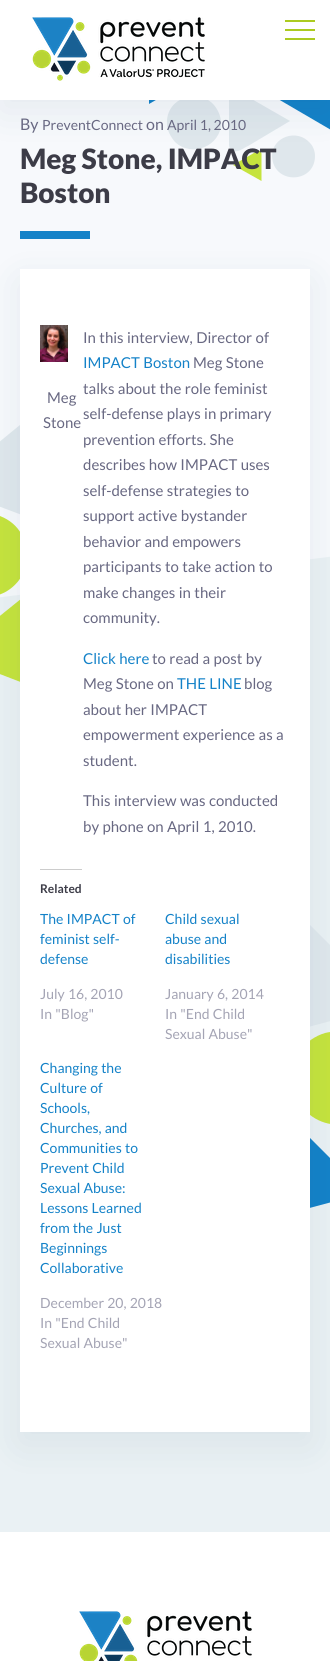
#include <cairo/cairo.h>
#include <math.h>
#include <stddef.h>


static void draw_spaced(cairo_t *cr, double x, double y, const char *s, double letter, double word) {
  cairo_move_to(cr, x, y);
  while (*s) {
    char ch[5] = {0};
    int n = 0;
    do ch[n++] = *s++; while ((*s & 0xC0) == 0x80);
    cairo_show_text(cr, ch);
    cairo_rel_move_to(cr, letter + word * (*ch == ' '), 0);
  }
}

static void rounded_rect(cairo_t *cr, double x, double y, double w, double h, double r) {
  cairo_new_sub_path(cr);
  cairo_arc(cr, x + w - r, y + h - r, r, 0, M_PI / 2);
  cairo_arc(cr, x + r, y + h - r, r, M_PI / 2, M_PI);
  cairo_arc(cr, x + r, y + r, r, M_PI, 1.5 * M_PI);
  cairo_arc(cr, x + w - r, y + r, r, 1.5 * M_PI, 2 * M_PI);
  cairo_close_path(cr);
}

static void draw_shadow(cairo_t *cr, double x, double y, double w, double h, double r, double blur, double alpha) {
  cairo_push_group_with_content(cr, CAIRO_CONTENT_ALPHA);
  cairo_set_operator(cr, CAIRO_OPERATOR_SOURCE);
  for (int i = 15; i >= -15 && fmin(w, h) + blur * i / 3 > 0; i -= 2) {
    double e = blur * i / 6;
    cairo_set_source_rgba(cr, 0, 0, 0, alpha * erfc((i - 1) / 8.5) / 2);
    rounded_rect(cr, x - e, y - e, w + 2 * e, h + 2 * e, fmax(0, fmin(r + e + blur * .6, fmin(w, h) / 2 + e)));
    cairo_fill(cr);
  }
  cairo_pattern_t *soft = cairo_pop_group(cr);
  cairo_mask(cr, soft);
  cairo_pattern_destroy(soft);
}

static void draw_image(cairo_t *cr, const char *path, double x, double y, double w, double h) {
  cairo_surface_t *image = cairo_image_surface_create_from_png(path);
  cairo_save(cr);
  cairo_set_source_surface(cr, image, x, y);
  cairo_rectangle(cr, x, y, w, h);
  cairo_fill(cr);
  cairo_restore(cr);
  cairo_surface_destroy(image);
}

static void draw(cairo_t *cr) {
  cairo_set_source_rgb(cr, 247 / 255.0, 249 / 255.0, 252 / 255.0);
  cairo_paint(cr);
  cairo_set_source_rgb(cr, 223 / 255.0, 231 / 255.0, 236 / 255.0);
  cairo_new_path(cr);
  cairo_move_to(cr, 221, 123);
  cairo_curve_to(cr, 221, 116, 218, 110, 214, 105);
  cairo_curve_to(cr, 198, 87, 166, 98, 167, 123);
  cairo_curve_to(cr, 167, 130, 170, 136, 175, 142);
  cairo_curve_to(cr, 192, 158, 221, 146, 221, 123);
  cairo_close_path(cr);
  cairo_fill(cr);
  cairo_set_source_rgb(cr, 20 / 255.0, 130 / 255.0, 200 / 255.0);
  cairo_new_path(cr);
  cairo_move_to(cr, 178, 87);
  cairo_curve_to(cr, 179, 87, 179, 86, 180, 85);
  cairo_curve_to(cr, 181, 81, 175, 79, 173, 78);
  cairo_line_to(cr, 149, 64);
  cairo_line_to(cr, 149, 104);
  cairo_close_path(cr);
  cairo_fill(cr);
  cairo_new_path(cr);
  cairo_move_to(cr, 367, 64);
  cairo_curve_to(cr, 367, 61, 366, 59, 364, 57);
  cairo_curve_to(cr, 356, 51, 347, 60, 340, 63);
  cairo_line_to(cr, 278, 99);
  cairo_line_to(cr, 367, 151);
  cairo_close_path(cr);
  cairo_fill(cr);
  cairo_set_source_rgb(cr, 197 / 255.0, 227 / 255.0, 61 / 255.0);
  cairo_new_path(cr);
  cairo_move_to(cr, 261.5, 154);
  cairo_curve_to(cr, 261.5, 153, 261, 152, 260.5, 151.5);
  cairo_curve_to(cr, 258, 149.5, 255, 152.5, 253, 153.5);
  cairo_line_to(cr, 233, 165);
  cairo_line_to(cr, 261.5, 181);
  cairo_close_path(cr);
  cairo_fill(cr);
  cairo_set_source_rgb(cr, 223 / 255.0, 231 / 255.0, 236 / 255.0);
  cairo_new_path(cr);
  cairo_move_to(cr, 315, 156);
  cairo_curve_to(cr, 315, 151, 313, 146, 310, 143);
  cairo_curve_to(cr, 297, 128, 272, 137, 272, 156);
  cairo_curve_to(cr, 273, 185, 315, 184, 315, 156);
  cairo_close_path(cr);
  cairo_fill(cr);
  cairo_new_path(cr);
  cairo_move_to(cr, 229, 145);
  cairo_curve_to(cr, 229, 147, 230, 149, 232, 150);
  cairo_curve_to(cr, 237, 154, 243, 148, 248, 146);
  cairo_line_to(cr, 290, 121);
  cairo_line_to(cr, 229, 86);
  cairo_close_path(cr);
  cairo_fill(cr);
  cairo_set_source_rgb(cr, 17 / 255.0, 57 / 255.0, 91 / 255.0);
  draw_shadow(cr, 0, 12, 330, 100, 0, 20, 0.08);
  cairo_set_source_rgb(cr, 1, 1, 1);
  cairo_rectangle(cr, 0, 0, 330, 100);
  cairo_fill(cr);
  draw_image(cr, "images/1.png", 32, 17, 173, 64);
  cairo_set_source_rgb(cr, 172 / 255.0, 203 / 255.0, 32 / 255.0);
  cairo_rectangle(cr, 285, 29, 30, 2);
  cairo_fill(cr);
  cairo_rectangle(cr, 285, 20, 30, 2);
  cairo_fill(cr);
  cairo_rectangle(cr, 285, 38, 30, 2);
  cairo_fill(cr);
  cairo_set_source_rgb(cr, 234 / 255.0, 241 / 255.0, 244 / 255.0);
  cairo_new_path(cr);
  cairo_move_to(cr, 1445, 420);
  cairo_line_to(cr, 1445, 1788);
  cairo_line_to(cr, -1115, 1474);
  cairo_line_to(cr, -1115, 734);
  cairo_close_path(cr);
  cairo_fill(cr);
  cairo_set_source_rgb(cr, 197 / 255.0, 227 / 255.0, 61 / 255.0);
  cairo_new_path(cr);
  cairo_move_to(cr, -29, 594);
  cairo_curve_to(cr, -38, 591, -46, 584, -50, 575);
  cairo_curve_to(cr, -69, 542, -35, 503, 0, 516);
  cairo_curve_to(cr, 10, 520, 17, 526, 22, 535);
  cairo_curve_to(cr, 41, 569, 7, 608, -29, 594);
  cairo_close_path(cr);
  cairo_fill(cr);
  cairo_set_source_rgb(cr, 223 / 255.0, 231 / 255.0, 236 / 255.0);
  cairo_new_path(cr);
  cairo_move_to(cr, -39, 492);
  cairo_curve_to(cr, -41, 491, -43, 489, -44, 487);
  cairo_curve_to(cr, -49, 477, -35, 471, -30, 466);
  cairo_line_to(cr, 26, 420);
  cairo_line_to(cr, 43, 523);
  cairo_close_path(cr);
  cairo_fill(cr);
  cairo_set_source_rgb(cr, 197 / 255.0, 227 / 255.0, 61 / 255.0);
  cairo_new_path(cr);
  cairo_move_to(cr, -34, 661);
  cairo_curve_to(cr, -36, 660, -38, 659, -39, 656);
  cairo_curve_to(cr, -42, 646, -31, 641, -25, 636);
  cairo_line_to(cr, 32, 590);
  cairo_line_to(cr, 49, 693);
  cairo_close_path(cr);
  cairo_fill(cr);
  cairo_new_path(cr);
  cairo_move_to(cr, 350, 1123);
  cairo_curve_to(cr, 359, 1120, 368, 1115, 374, 1107);
  cairo_curve_to(cr, 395, 1081, 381, 1042, 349, 1033);
  cairo_curve_to(cr, 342, 1031, 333, 1031, 325, 1033);
  cairo_curve_to(cr, 315, 1036, 306, 1042, 299, 1052);
  cairo_curve_to(cr, 275, 1087, 309, 1134, 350, 1123);
  cairo_close_path(cr);
  cairo_fill(cr);
  cairo_set_source_rgb(cr, 223 / 255.0, 231 / 255.0, 236 / 255.0);
  cairo_new_path(cr);
  cairo_move_to(cr, 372, 1010);
  cairo_curve_to(cr, 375, 1010, 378, 1008, 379, 1005);
  cairo_curve_to(cr, 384, 995, 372, 987, 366, 981);
  cairo_line_to(cr, 308, 923);
  cairo_line_to(cr, 278, 1035);
  cairo_close_path(cr);
  cairo_fill(cr);
  cairo_set_source_rgb(cr, 20 / 255.0, 130 / 255.0, 200 / 255.0);
  cairo_new_path(cr);
  cairo_move_to(cr, 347, 1198);
  cairo_curve_to(cr, 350, 1197, 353, 1195, 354, 1192);
  cairo_curve_to(cr, 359, 1182, 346, 1174, 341, 1169);
  cairo_line_to(cr, 283, 1111);
  cairo_line_to(cr, 253, 1223);
  cairo_close_path(cr);
  cairo_fill(cr);
  cairo_set_source_rgb(cr, 17 / 255.0, 57 / 255.0, 91 / 255.0);
  draw_shadow(cr, 20, 281, 290, 1163, 0, 20, 0.08);
  cairo_set_source_rgb(cr, 20 / 255.0, 130 / 255.0, 200 / 255.0);
  cairo_rectangle(cr, 20, 231, 70, 8);
  cairo_fill(cr);
  cairo_set_source_rgb(cr, 1, 1, 1);
  cairo_rectangle(cr, 20, 269, 290, 1163);
  cairo_fill(cr);
  draw_image(cr, "images/2.png", 40, 325, 28, 37);
  cairo_set_source_rgb(cr, 204 / 255.0, 204 / 255.0, 204 / 255.0);
  cairo_rectangle(cr, 40, 869, 42, 1);
  cairo_fill(cr);
  cairo_set_source_rgb(cr, 1, 1, 1);
  cairo_rectangle(cr, 0, 1532, 330, 129);
  cairo_fill(cr);
  draw_image(cr, "images/3.png", 79, 1611, 173, 50);
  cairo_select_font_face(cr, "Lato", CAIRO_FONT_SLANT_NORMAL, CAIRO_FONT_WEIGHT_NORMAL);
  cairo_set_font_size(cr, 16);
  cairo_set_source_rgb(cr, 104 / 255.0, 104 / 255.0, 130 / 255.0);
  cairo_move_to(cr, 20, 130);
  cairo_show_text(cr, "By");
  cairo_set_font_size(cr, 14);
  cairo_move_to(cr, 42, 130);
  cairo_show_text(cr, "PreventConnect");
  cairo_set_font_size(cr, 16);
  cairo_move_to(cr, 146, 130);
  cairo_show_text(cr, "on");
  cairo_set_font_size(cr, 14);
  cairo_move_to(cr, 167, 130);
  cairo_show_text(cr, "April 1, 2010");
  cairo_select_font_face(cr, "Lato Black", CAIRO_FONT_SLANT_NORMAL, CAIRO_FONT_WEIGHT_NORMAL);
  cairo_set_font_size(cr, 28);
  cairo_set_source_rgb(cr, 60 / 255.0, 60 / 255.0, 71 / 255.0);
  cairo_move_to(cr, 20, 169);
  cairo_show_text(cr, "Meg Stone, IMPACT");
  cairo_move_to(cr, 20, 203);
  cairo_show_text(cr, "Boston");
  cairo_select_font_face(cr, "Lato", CAIRO_FONT_SLANT_NORMAL, CAIRO_FONT_WEIGHT_NORMAL);
  cairo_set_font_size(cr, 15);
  cairo_set_source_rgb(cr, 104 / 255.0, 104 / 255.0, 130 / 255.0);
  cairo_move_to(cr, 47, 403);
  cairo_show_text(cr, "Meg");
  cairo_move_to(cr, 43, 428);
  cairo_show_text(cr, "Stone");
  draw_spaced(cr, 83, 343, "In this interview, Director of", 0, 0.5);
  cairo_set_source_rgb(cr, 20 / 255.0, 130 / 255.0, 200 / 255.0);
  draw_spaced(cr, 83, 368, "IMPACT Boston", 0, 0.5);
  cairo_set_source_rgb(cr, 104 / 255.0, 104 / 255.0, 130 / 255.0);
  draw_spaced(cr, 193, 368, "Meg Stone", 0, 0.5);
  draw_spaced(cr, 83, 394, "talks about the role feminist", 0, 0.5);
  draw_spaced(cr, 83, 419, "self-defense plays in primary", 0, 0.5);
  draw_spaced(cr, 83, 445, "prevention efforts. She", 0, 0.5);
  draw_spaced(cr, 83, 470, "describes how IMPACT uses", 0, 0.5);
  draw_spaced(cr, 83, 496, "self-defense strategies to", 0, 0.5);
  draw_spaced(cr, 83, 521, "support active bystander", 0, 0.5);
  draw_spaced(cr, 83, 547, "behavior and empowers", 0, 0.5);
  draw_spaced(cr, 83, 572, "participants to take action to", 0, 0.5);
  draw_spaced(cr, 83, 598, "make changes in their", 0, 0.5);
  cairo_move_to(cr, 83, 623);
  cairo_show_text(cr, "community.");
  cairo_set_source_rgb(cr, 20 / 255.0, 130 / 255.0, 200 / 255.0);
  draw_spaced(cr, 83, 664, "Click here", 0, 0.5);
  cairo_set_source_rgb(cr, 104 / 255.0, 104 / 255.0, 130 / 255.0);
  draw_spaced(cr, 152, 664, "to read a post by", 0, 0.5);
  draw_spaced(cr, 83, 689, "Meg Stone on", 0, 0.5);
  cairo_set_source_rgb(cr, 20 / 255.0, 130 / 255.0, 200 / 255.0);
  draw_spaced(cr, 177, 689, "THE LINE", 0, 0.5);
  cairo_set_source_rgb(cr, 104 / 255.0, 104 / 255.0, 130 / 255.0);
  cairo_move_to(cr, 244, 689);
  cairo_show_text(cr, "blog");
  draw_spaced(cr, 83, 715, "about her IMPACT", 0, 0.5);
  draw_spaced(cr, 83, 740, "empowerment experience as a", 0, 0.5);
  cairo_move_to(cr, 83, 766);
  cairo_show_text(cr, "student.");
  draw_spaced(cr, 83, 806, "This interview was conducted", 0, 0.5);
  draw_spaced(cr, 83, 832, "by phone on April 1, 2010.", 0, 0.5);
  cairo_select_font_face(cr, "Lato", CAIRO_FONT_SLANT_NORMAL, CAIRO_FONT_WEIGHT_BOLD);
  cairo_set_font_size(cr, 12);
  cairo_set_source_rgb(cr, 60 / 255.0, 60 / 255.0, 71 / 255.0);
  cairo_move_to(cr, 40, 893);
  cairo_show_text(cr, "Related");
  cairo_select_font_face(cr, "Lato", CAIRO_FONT_SLANT_NORMAL, CAIRO_FONT_WEIGHT_NORMAL);
  cairo_set_font_size(cr, 14);
  cairo_set_source_rgb(cr, 20 / 255.0, 130 / 255.0, 200 / 255.0);
  draw_spaced(cr, 40, 924, "The IMPACT of", 0, 0.5);
  draw_spaced(cr, 40, 944, "feminist self-", 0, 0.5);
  cairo_move_to(cr, 40, 964);
  cairo_show_text(cr, "defense");
  cairo_set_source_rgb(cr, 164 / 255.0, 164 / 255.0, 180 / 255.0);
  draw_spaced(cr, 40, 999, "July 16, 2010", 0, 0.5);
  draw_spaced(cr, 40, 1019, "In \"Blog\"", 0, 0.5);
  cairo_set_source_rgb(cr, 20 / 255.0, 130 / 255.0, 200 / 255.0);
  draw_spaced(cr, 165, 924, "Child sexual", 0, 0.5);
  draw_spaced(cr, 165, 944, "abuse and", 0, 0.5);
  cairo_move_to(cr, 165, 964);
  cairo_show_text(cr, "disabilities");
  cairo_set_source_rgb(cr, 164 / 255.0, 164 / 255.0, 180 / 255.0);
  draw_spaced(cr, 165, 999, "January 6, 2014", 0, 0.5);
  draw_spaced(cr, 165, 1019, "In \"End Child", 0, 0.5);
  draw_spaced(cr, 165, 1039, "Sexual Abuse\"", 0, 0.5);
  cairo_set_source_rgb(cr, 20 / 255.0, 130 / 255.0, 200 / 255.0);
  draw_spaced(cr, 40, 1073, "Changing the", 0, 0.5);
  draw_spaced(cr, 40, 1093, "Culture of", 0, 0.5);
  cairo_move_to(cr, 40, 1113);
  cairo_show_text(cr, "Schools,");
  draw_spaced(cr, 40, 1133, "Churches, and", 0, 0.5);
  draw_spaced(cr, 40, 1153, "Communities to", 0, 0.5);
  draw_spaced(cr, 40, 1173, "Prevent Child", 0, 0.5);
  draw_spaced(cr, 40, 1193, "Sexual Abuse:", 0, 0.5);
  draw_spaced(cr, 40, 1213, "Lessons Learned", 0, 0.5);
  draw_spaced(cr, 40, 1233, "from the Just", 0, 0.5);
  cairo_move_to(cr, 40, 1253);
  cairo_show_text(cr, "Beginnings");
  cairo_move_to(cr, 40, 1273);
  cairo_show_text(cr, "Collaborative");
  cairo_set_source_rgb(cr, 164 / 255.0, 164 / 255.0, 180 / 255.0);
  draw_spaced(cr, 40, 1308, "December 20, 2018", 0, 0.5);
  draw_spaced(cr, 40, 1328, "In \"End Child", 0, 0.5);
  draw_spaced(cr, 40, 1348, "Sexual Abuse\"", 0, 0.5);
}

int main(void) {
  cairo_surface_t *surface = cairo_image_surface_create(CAIRO_FORMAT_RGB24, 330, 1661);
  cairo_t *cr = cairo_create(surface);
  cairo_font_options_t *options = cairo_font_options_create();
  cairo_font_options_set_hint_metrics(options, CAIRO_HINT_METRICS_OFF);
  cairo_font_options_set_hint_style(options, CAIRO_HINT_STYLE_NONE);
  cairo_set_font_options(cr, options);
  cairo_set_miter_limit(cr, 4);
  draw(cr);
  cairo_surface_write_to_png(surface, "out.png");
  cairo_font_options_destroy(options);
  cairo_destroy(cr);
  cairo_surface_destroy(surface);
  return 0;
}
